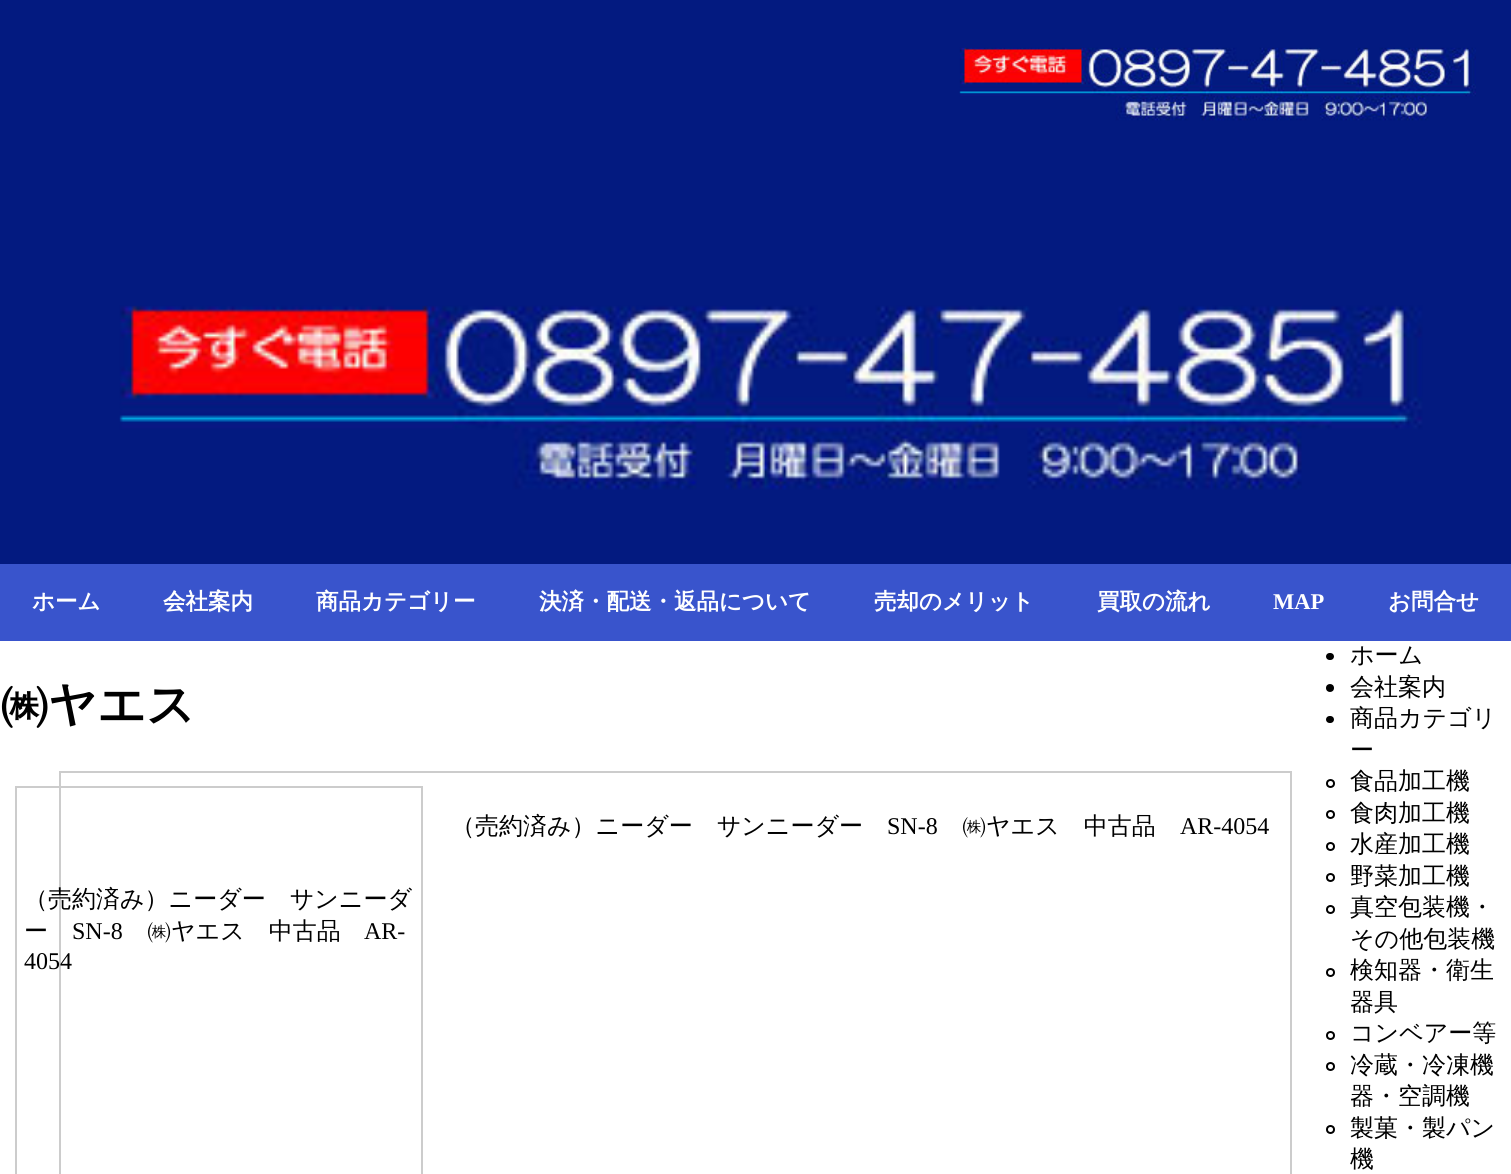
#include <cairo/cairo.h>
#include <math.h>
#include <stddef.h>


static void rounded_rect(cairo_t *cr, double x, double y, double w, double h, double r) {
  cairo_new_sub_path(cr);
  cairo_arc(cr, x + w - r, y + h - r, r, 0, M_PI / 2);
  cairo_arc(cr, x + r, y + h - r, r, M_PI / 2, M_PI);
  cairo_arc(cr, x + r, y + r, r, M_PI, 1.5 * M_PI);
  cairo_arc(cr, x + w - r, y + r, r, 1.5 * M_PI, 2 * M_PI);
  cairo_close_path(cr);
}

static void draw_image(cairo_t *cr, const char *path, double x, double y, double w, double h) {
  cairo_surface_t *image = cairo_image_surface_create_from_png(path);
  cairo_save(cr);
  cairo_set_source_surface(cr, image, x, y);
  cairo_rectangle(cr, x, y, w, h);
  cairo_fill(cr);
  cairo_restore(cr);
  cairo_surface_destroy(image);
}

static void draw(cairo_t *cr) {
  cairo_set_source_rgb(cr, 1, 1, 1);
  cairo_paint(cr);
  cairo_set_source_rgb(cr, 3 / 255.0, 26 / 255.0, 128 / 255.0);
  cairo_rectangle(cr, 0, 0, 1511, 186);
  cairo_fill(cr);
  draw_image(cr, "images/1.png", 959, 47, 517, 74);
  draw_image(cr, "images/2.png", 0, 186, 1511, 378);
  cairo_set_source_rgb(cr, 57 / 255.0, 84 / 255.0, 204 / 255.0);
  cairo_rectangle(cr, 0, 564, 1511, 77);
  cairo_fill(cr);
  cairo_rectangle(cr, 60, 772, 1231, 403);
  cairo_set_source_rgb(cr, 204 / 255.0, 204 / 255.0, 204 / 255.0);
  cairo_stroke(cr);
  cairo_rectangle(cr, 16, 787, 406, 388);
  cairo_stroke(cr);
  cairo_set_source_rgb(cr, 0, 0, 0);
  rounded_rect(cr, 1326, 653, 8, 7, 3.5);
  cairo_fill(cr);
  cairo_arc(cr, 1330, 688, 4, 0, 2 * M_PI);
  cairo_fill(cr);
  rounded_rect(cr, 1326, 716, 8, 7, 3.5);
  cairo_fill(cr);
  cairo_arc(cr, 1330.5, 783.5, 3.5, 0, 2 * M_PI);
  cairo_stroke(cr);
  cairo_arc(cr, 1330.5, 814.5, 3.5, 0, 2 * M_PI);
  cairo_stroke(cr);
  cairo_arc(cr, 1330.5, 846.5, 3.5, 0, 2 * M_PI);
  cairo_stroke(cr);
  cairo_arc(cr, 1330.5, 877.5, 3.5, 0, 2 * M_PI);
  cairo_stroke(cr);
  cairo_arc(cr, 1330.5, 909.5, 3.5, 0, 2 * M_PI);
  cairo_stroke(cr);
  cairo_arc(cr, 1330.5, 972.5, 3.5, 0, 2 * M_PI);
  cairo_stroke(cr);
  cairo_arc(cr, 1330.5, 1035.5, 3.5, 0, 2 * M_PI);
  cairo_stroke(cr);
  cairo_arc(cr, 1330.5, 1066.5, 3.5, 0, 2 * M_PI);
  cairo_stroke(cr);
  cairo_arc(cr, 1330.5, 1129.5, 3.5, 0, 2 * M_PI);
  cairo_stroke(cr);
  cairo_select_font_face(cr, "WenQuanYi Zen Hei", CAIRO_FONT_SLANT_NORMAL, CAIRO_FONT_WEIGHT_BOLD);
  cairo_set_font_size(cr, 22.5);
  cairo_set_source_rgb(cr, 1, 1, 1);
  cairo_move_to(cr, 32, 609);
  cairo_show_text(cr, "ホーム");
  cairo_move_to(cr, 163, 609);
  cairo_show_text(cr, "会社案内");
  cairo_move_to(cr, 316, 609);
  cairo_show_text(cr, "商品カテゴリー");
  cairo_move_to(cr, 539, 609);
  cairo_show_text(cr, "決済・配送・返品について");
  cairo_move_to(cr, 874, 609);
  cairo_show_text(cr, "売却のメリット");
  cairo_move_to(cr, 1097, 609);
  cairo_show_text(cr, "買取の流れ");
  cairo_select_font_face(cr, "Liberation Serif", CAIRO_FONT_SLANT_NORMAL, CAIRO_FONT_WEIGHT_BOLD);
  cairo_move_to(cr, 1273, 609);
  cairo_show_text(cr, "MAP");
  cairo_select_font_face(cr, "WenQuanYi Zen Hei", CAIRO_FONT_SLANT_NORMAL, CAIRO_FONT_WEIGHT_BOLD);
  cairo_move_to(cr, 1388, 609);
  cairo_show_text(cr, "お問合せ");
  cairo_set_font_size(cr, 48);
  cairo_set_source_rgb(cr, 0, 0, 0);
  cairo_move_to(cr, 0, 721);
  cairo_show_text(cr, "㈱ヤエス");
  cairo_select_font_face(cr, "WenQuanYi Zen Hei Medium", CAIRO_FONT_SLANT_NORMAL, CAIRO_FONT_WEIGHT_NORMAL);
  cairo_set_font_size(cr, 24);
  cairo_move_to(cr, 451, 834);
  cairo_show_text(cr, "（売約済み）ニーダー　サンニーダー");
  cairo_select_font_face(cr, "Liberation Serif", CAIRO_FONT_SLANT_NORMAL, CAIRO_FONT_WEIGHT_NORMAL);
  cairo_move_to(cr, 887, 834);
  cairo_show_text(cr, "SN-8");
  cairo_select_font_face(cr, "WenQuanYi Zen Hei Medium", CAIRO_FONT_SLANT_NORMAL, CAIRO_FONT_WEIGHT_NORMAL);
  cairo_move_to(cr, 962, 834);
  cairo_show_text(cr, "㈱ヤエス　中古品");
  cairo_select_font_face(cr, "Liberation Serif", CAIRO_FONT_SLANT_NORMAL, CAIRO_FONT_WEIGHT_NORMAL);
  cairo_move_to(cr, 1180, 834);
  cairo_show_text(cr, "AR-4054");
  cairo_select_font_face(cr, "WenQuanYi Zen Hei Medium", CAIRO_FONT_SLANT_NORMAL, CAIRO_FONT_WEIGHT_NORMAL);
  cairo_move_to(cr, 24, 907);
  cairo_show_text(cr, "（売約済み）ニーダー　サンニーダ");
  cairo_move_to(cr, 24, 939);
  cairo_show_text(cr, "ー");
  cairo_select_font_face(cr, "Liberation Serif", CAIRO_FONT_SLANT_NORMAL, CAIRO_FONT_WEIGHT_NORMAL);
  cairo_move_to(cr, 72, 939);
  cairo_show_text(cr, "SN-8");
  cairo_select_font_face(cr, "WenQuanYi Zen Hei Medium", CAIRO_FONT_SLANT_NORMAL, CAIRO_FONT_WEIGHT_NORMAL);
  cairo_move_to(cr, 147, 939);
  cairo_show_text(cr, "㈱ヤエス　中古品");
  cairo_select_font_face(cr, "Liberation Serif", CAIRO_FONT_SLANT_NORMAL, CAIRO_FONT_WEIGHT_NORMAL);
  cairo_move_to(cr, 364, 939);
  cairo_show_text(cr, "AR-");
  cairo_move_to(cr, 24, 969);
  cairo_show_text(cr, "4054");
  cairo_select_font_face(cr, "WenQuanYi Zen Hei Medium", CAIRO_FONT_SLANT_NORMAL, CAIRO_FONT_WEIGHT_NORMAL);
  cairo_move_to(cr, 1350, 663);
  cairo_show_text(cr, "ホーム");
  cairo_move_to(cr, 1350, 695);
  cairo_show_text(cr, "会社案内");
  cairo_move_to(cr, 1350, 726);
  cairo_show_text(cr, "商品カテゴリ");
  cairo_move_to(cr, 1350, 758);
  cairo_show_text(cr, "ー");
  cairo_move_to(cr, 1350, 789);
  cairo_show_text(cr, "食品加工機");
  cairo_move_to(cr, 1350, 821);
  cairo_show_text(cr, "食肉加工機");
  cairo_move_to(cr, 1350, 852);
  cairo_show_text(cr, "水産加工機");
  cairo_move_to(cr, 1350, 884);
  cairo_show_text(cr, "野菜加工機");
  cairo_move_to(cr, 1350, 915);
  cairo_show_text(cr, "真空包装機・");
  cairo_move_to(cr, 1350, 947);
  cairo_show_text(cr, "その他包装機");
  cairo_move_to(cr, 1350, 978);
  cairo_show_text(cr, "検知器・衛生");
  cairo_move_to(cr, 1350, 1010);
  cairo_show_text(cr, "器具");
  cairo_move_to(cr, 1350, 1041);
  cairo_show_text(cr, "コンベアー等");
  cairo_move_to(cr, 1350, 1073);
  cairo_show_text(cr, "冷蔵・冷凍機");
  cairo_move_to(cr, 1350, 1104);
  cairo_show_text(cr, "器・空調機");
  cairo_move_to(cr, 1350, 1136);
  cairo_show_text(cr, "製菓・製パン");
  cairo_move_to(cr, 1350, 1167);
  cairo_show_text(cr, "機");
}

int main(void) {
  cairo_surface_t *surface = cairo_image_surface_create(CAIRO_FORMAT_RGB24, 1511, 1174);
  cairo_t *cr = cairo_create(surface);
  cairo_font_options_t *options = cairo_font_options_create();
  cairo_font_options_set_hint_metrics(options, CAIRO_HINT_METRICS_OFF);
  cairo_font_options_set_hint_style(options, CAIRO_HINT_STYLE_NONE);
  cairo_set_font_options(cr, options);
  cairo_set_miter_limit(cr, 4);
  draw(cr);
  cairo_surface_write_to_png(surface, "out.png");
  cairo_font_options_destroy(options);
  cairo_destroy(cr);
  cairo_surface_destroy(surface);
  return 0;
}
